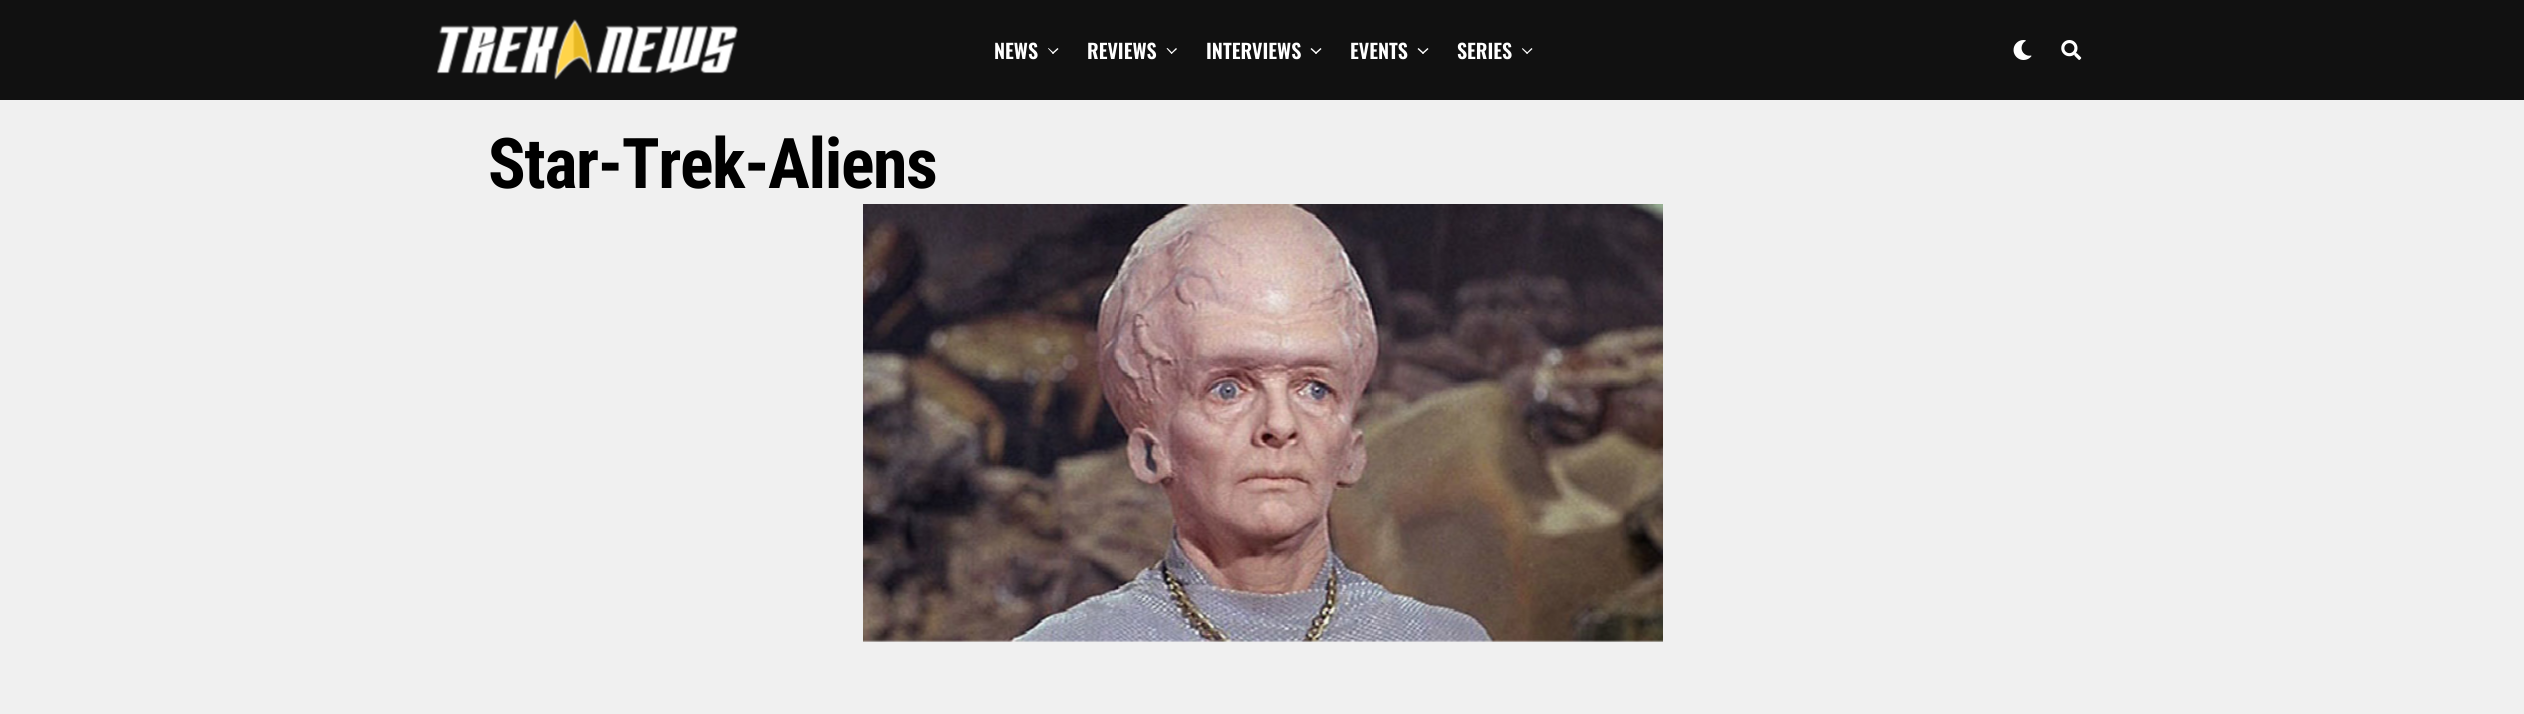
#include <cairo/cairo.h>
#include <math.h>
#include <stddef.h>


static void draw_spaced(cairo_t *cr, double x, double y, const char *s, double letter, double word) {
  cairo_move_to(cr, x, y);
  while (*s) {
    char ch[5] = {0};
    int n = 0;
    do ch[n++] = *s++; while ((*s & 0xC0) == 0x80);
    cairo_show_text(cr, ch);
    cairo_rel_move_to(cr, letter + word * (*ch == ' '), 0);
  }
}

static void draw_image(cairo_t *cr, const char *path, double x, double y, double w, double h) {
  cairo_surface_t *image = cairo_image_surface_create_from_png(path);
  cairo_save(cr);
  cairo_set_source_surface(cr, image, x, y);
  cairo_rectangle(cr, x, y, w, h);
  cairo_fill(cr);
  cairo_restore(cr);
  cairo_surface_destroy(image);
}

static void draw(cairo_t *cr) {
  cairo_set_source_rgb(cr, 240 / 255.0, 240 / 255.0, 240 / 255.0);
  cairo_paint(cr);
  cairo_set_source_rgb(cr, 17 / 255.0, 17 / 255.0, 17 / 255.0);
  cairo_rectangle(cr, 0, 0, 2524, 100);
  cairo_fill(cr);
  draw_image(cr, "images/1.png", 437, 19, 301, 61);
  cairo_set_source_rgb(cr, 1, 1, 1);
  cairo_new_path(cr);
  cairo_move_to(cr, 1057.5, 48);
  cairo_line_to(cr, 1058.5, 49);
  cairo_line_to(cr, 1053, 54);
  cairo_line_to(cr, 1052, 53);
  cairo_close_path(cr);
  cairo_fill(cr);
  cairo_new_path(cr);
  cairo_move_to(cr, 1048.5, 48);
  cairo_line_to(cr, 1054, 53);
  cairo_line_to(cr, 1053, 54);
  cairo_line_to(cr, 1048, 48.5);
  cairo_close_path(cr);
  cairo_fill(cr);
  cairo_new_path(cr);
  cairo_move_to(cr, 1176, 48);
  cairo_line_to(cr, 1177, 49);
  cairo_line_to(cr, 1171.5, 54);
  cairo_line_to(cr, 1171, 53);
  cairo_close_path(cr);
  cairo_fill(cr);
  cairo_new_path(cr);
  cairo_move_to(cr, 1167.5, 48);
  cairo_line_to(cr, 1172.5, 53);
  cairo_line_to(cr, 1171.5, 54);
  cairo_line_to(cr, 1166.5, 48.5);
  cairo_close_path(cr);
  cairo_fill(cr);
  cairo_new_path(cr);
  cairo_move_to(cr, 1320.5, 48);
  cairo_line_to(cr, 1321.5, 49);
  cairo_line_to(cr, 1316, 54);
  cairo_line_to(cr, 1315, 53);
  cairo_close_path(cr);
  cairo_fill(cr);
  cairo_new_path(cr);
  cairo_move_to(cr, 1311.5, 48);
  cairo_line_to(cr, 1317, 53);
  cairo_line_to(cr, 1316, 54);
  cairo_line_to(cr, 1310.5, 49);
  cairo_close_path(cr);
  cairo_fill(cr);
  cairo_new_path(cr);
  cairo_move_to(cr, 1427.5, 48);
  cairo_line_to(cr, 1428.5, 49);
  cairo_line_to(cr, 1423, 54);
  cairo_line_to(cr, 1422, 53);
  cairo_close_path(cr);
  cairo_fill(cr);
  cairo_new_path(cr);
  cairo_move_to(cr, 1418.5, 48);
  cairo_line_to(cr, 1424, 53);
  cairo_line_to(cr, 1423, 54);
  cairo_line_to(cr, 1417.5, 49);
  cairo_close_path(cr);
  cairo_fill(cr);
  cairo_new_path(cr);
  cairo_move_to(cr, 1531.5, 48);
  cairo_line_to(cr, 1532.5, 49);
  cairo_line_to(cr, 1527, 54);
  cairo_line_to(cr, 1526.5, 53);
  cairo_close_path(cr);
  cairo_fill(cr);
  cairo_new_path(cr);
  cairo_move_to(cr, 1522.5, 48);
  cairo_line_to(cr, 1528, 53);
  cairo_line_to(cr, 1527, 54);
  cairo_line_to(cr, 1522, 49);
  cairo_close_path(cr);
  cairo_fill(cr);
  draw_image(cr, "images/2.png", 2013, 40, 19, 20);
  draw_image(cr, "images/3.png", 2061, 40, 21, 20);
  draw_image(cr, "images/4.png", 863, 204, 800, 438);
  cairo_select_font_face(cr, "Oswald SemiBold", CAIRO_FONT_SLANT_NORMAL, CAIRO_FONT_WEIGHT_NORMAL);
  cairo_set_font_size(cr, 20);
  cairo_move_to(cr, 994, 59);
  cairo_show_text(cr, "NEWS");
  cairo_move_to(cr, 1087, 59);
  cairo_show_text(cr, "REVIEWS");
  cairo_move_to(cr, 1206, 59);
  cairo_show_text(cr, "INTERVIEWS");
  cairo_move_to(cr, 1350, 59);
  cairo_show_text(cr, "EVENTS");
  cairo_move_to(cr, 1457, 59);
  cairo_show_text(cr, "SERIES");
  cairo_select_font_face(cr, "Roboto Condensed", CAIRO_FONT_SLANT_NORMAL, CAIRO_FONT_WEIGHT_BOLD);
  cairo_set_font_size(cr, 70);
  cairo_set_source_rgb(cr, 0, 0, 0);
  draw_spaced(cr, 488, 188, "Star-Trek-Aliens", -1.4, 0);
}

int main(void) {
  cairo_surface_t *surface = cairo_image_surface_create(CAIRO_FORMAT_RGB24, 2524, 714);
  cairo_t *cr = cairo_create(surface);
  cairo_font_options_t *options = cairo_font_options_create();
  cairo_font_options_set_hint_metrics(options, CAIRO_HINT_METRICS_OFF);
  cairo_font_options_set_hint_style(options, CAIRO_HINT_STYLE_NONE);
  cairo_set_font_options(cr, options);
  cairo_set_miter_limit(cr, 4);
  draw(cr);
  cairo_surface_write_to_png(surface, "out.png");
  cairo_font_options_destroy(options);
  cairo_destroy(cr);
  cairo_surface_destroy(surface);
  return 0;
}
